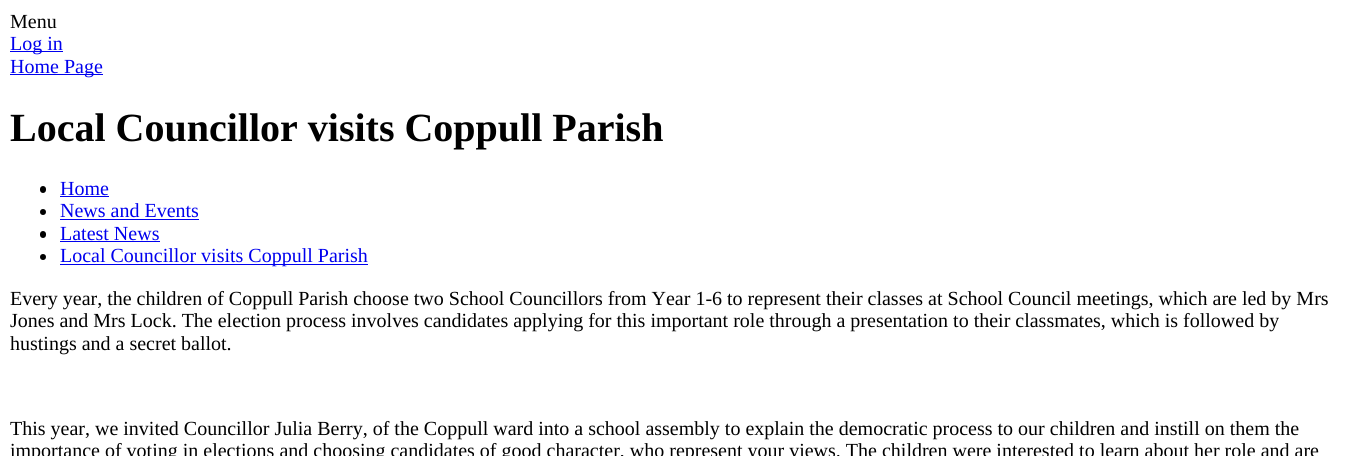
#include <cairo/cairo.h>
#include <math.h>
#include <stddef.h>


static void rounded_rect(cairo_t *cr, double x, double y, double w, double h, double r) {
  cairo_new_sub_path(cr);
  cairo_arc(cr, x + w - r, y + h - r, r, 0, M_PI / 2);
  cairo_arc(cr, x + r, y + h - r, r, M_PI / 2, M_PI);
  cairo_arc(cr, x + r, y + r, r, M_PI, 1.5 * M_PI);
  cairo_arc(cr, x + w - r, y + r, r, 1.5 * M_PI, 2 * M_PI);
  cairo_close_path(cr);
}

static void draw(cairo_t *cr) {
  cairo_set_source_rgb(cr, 1, 1, 1);
  cairo_paint(cr);
  cairo_set_source_rgb(cr, 0, 0, 238 / 255.0);
  cairo_rectangle(cr, 10, 51, 53, 1);
  cairo_fill(cr);
  cairo_rectangle(cr, 10, 74, 93, 1);
  cairo_fill(cr);
  cairo_set_source_rgb(cr, 0, 0, 0);
  rounded_rect(cr, 40, 186, 6, 7, 3);
  cairo_fill(cr);
  cairo_set_source_rgb(cr, 0, 0, 238 / 255.0);
  cairo_rectangle(cr, 60, 196, 49, 1);
  cairo_fill(cr);
  cairo_set_source_rgb(cr, 0, 0, 0);
  cairo_arc(cr, 43, 212, 3, 0, 2 * M_PI);
  cairo_fill(cr);
  cairo_set_source_rgb(cr, 0, 0, 238 / 255.0);
  cairo_rectangle(cr, 60, 219, 139, 1);
  cairo_fill(cr);
  cairo_set_source_rgb(cr, 0, 0, 0);
  rounded_rect(cr, 40, 231, 6, 7, 3);
  cairo_fill(cr);
  cairo_set_source_rgb(cr, 0, 0, 238 / 255.0);
  cairo_rectangle(cr, 60, 241, 100, 1);
  cairo_fill(cr);
  cairo_set_source_rgb(cr, 0, 0, 0);
  cairo_arc(cr, 43, 257, 3, 0, 2 * M_PI);
  cairo_fill(cr);
  cairo_set_source_rgb(cr, 0, 0, 238 / 255.0);
  cairo_rectangle(cr, 60, 264, 308, 1);
  cairo_fill(cr);
  cairo_select_font_face(cr, "Liberation Serif", CAIRO_FONT_SLANT_NORMAL, CAIRO_FONT_WEIGHT_NORMAL);
  cairo_set_font_size(cr, 20);
  cairo_set_source_rgb(cr, 0, 0, 0);
  cairo_move_to(cr, 10, 28);
  cairo_show_text(cr, "Menu");
  cairo_set_source_rgb(cr, 0, 0, 238 / 255.0);
  cairo_move_to(cr, 10, 50);
  cairo_show_text(cr, "Log in");
  cairo_move_to(cr, 10, 73);
  cairo_show_text(cr, "Home Page");
  cairo_select_font_face(cr, "Liberation Serif", CAIRO_FONT_SLANT_NORMAL, CAIRO_FONT_WEIGHT_BOLD);
  cairo_set_font_size(cr, 40);
  cairo_set_source_rgb(cr, 0, 0, 0);
  cairo_move_to(cr, 10, 141);
  cairo_show_text(cr, "Local Councillor visits Coppull Parish");
  cairo_select_font_face(cr, "Liberation Serif", CAIRO_FONT_SLANT_NORMAL, CAIRO_FONT_WEIGHT_NORMAL);
  cairo_set_font_size(cr, 20);
  cairo_set_source_rgb(cr, 0, 0, 238 / 255.0);
  cairo_move_to(cr, 60, 195);
  cairo_show_text(cr, "Home");
  cairo_move_to(cr, 60, 217);
  cairo_show_text(cr, "News and Events");
  cairo_move_to(cr, 60, 240);
  cairo_show_text(cr, "Latest News");
  cairo_move_to(cr, 60, 262);
  cairo_show_text(cr, "Local Councillor visits Coppull Parish");
  cairo_set_source_rgb(cr, 0, 0, 0);
  cairo_move_to(cr, 10, 305);
  cairo_show_text(cr, "Every year, the children of Coppull Parish choose two School Councillors from Year 1-6 to represent their classes at School Council meetings, which are led by Mrs");
  cairo_move_to(cr, 10, 327);
  cairo_show_text(cr, "Jones and Mrs Lock. The election process involves candidates applying for this important role through a presentation to their classmates, which is followed by");
  cairo_move_to(cr, 10, 350);
  cairo_show_text(cr, "hustings and a secret ballot.");
  cairo_move_to(cr, 10, 435);
  cairo_show_text(cr, "This year, we invited Councillor Julia Berry, of the Coppull ward into a school assembly to explain the democratic process to our children and instill on them the");
  cairo_move_to(cr, 10, 457);
  cairo_show_text(cr, "importance of voting in elections and choosing candidates of good character, who represent your views. The children were interested to learn about her role and are");
}

int main(void) {
  cairo_surface_t *surface = cairo_image_surface_create(CAIRO_FORMAT_RGB24, 1355, 456);
  cairo_t *cr = cairo_create(surface);
  cairo_font_options_t *options = cairo_font_options_create();
  cairo_font_options_set_hint_metrics(options, CAIRO_HINT_METRICS_OFF);
  cairo_font_options_set_hint_style(options, CAIRO_HINT_STYLE_NONE);
  cairo_set_font_options(cr, options);
  cairo_set_miter_limit(cr, 4);
  draw(cr);
  cairo_surface_write_to_png(surface, "out.png");
  cairo_font_options_destroy(options);
  cairo_destroy(cr);
  cairo_surface_destroy(surface);
  return 0;
}
